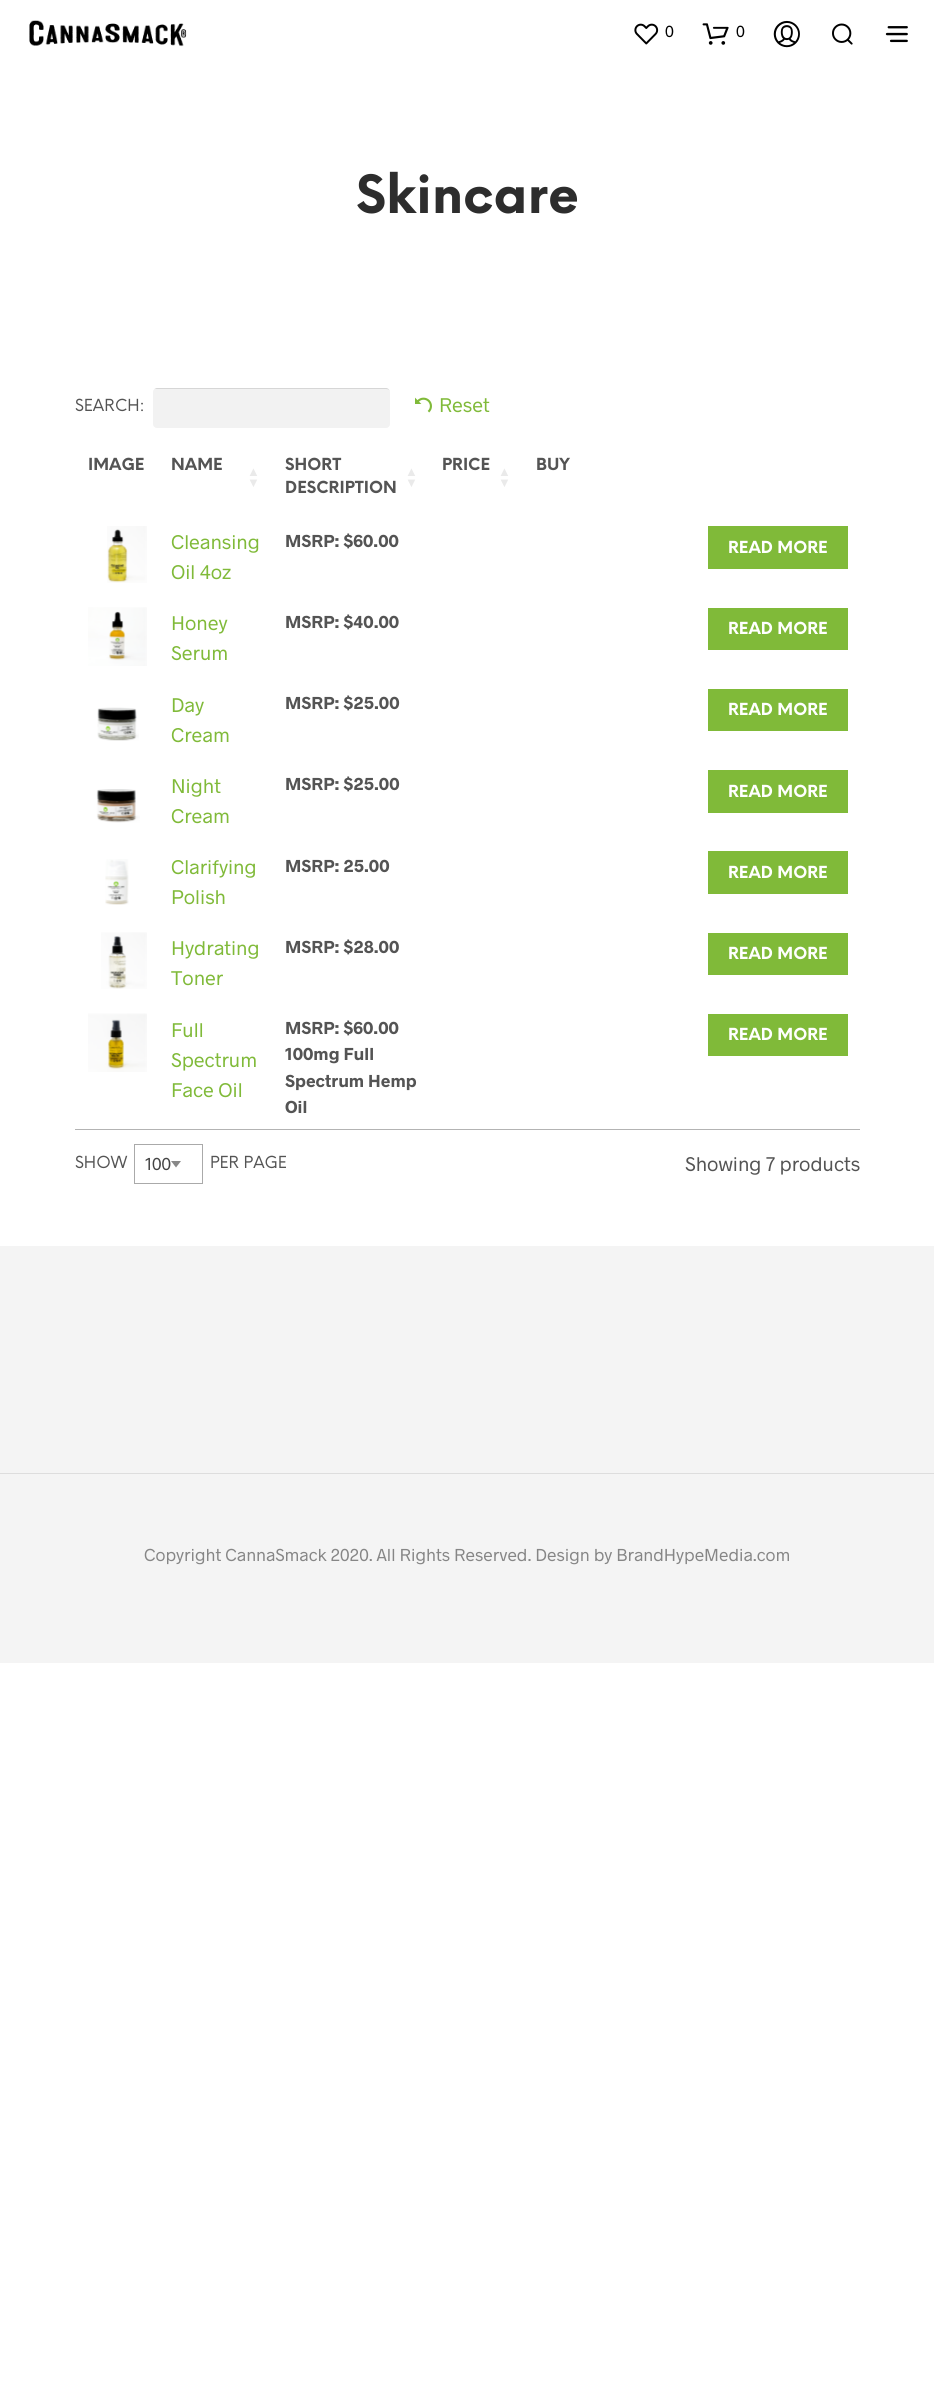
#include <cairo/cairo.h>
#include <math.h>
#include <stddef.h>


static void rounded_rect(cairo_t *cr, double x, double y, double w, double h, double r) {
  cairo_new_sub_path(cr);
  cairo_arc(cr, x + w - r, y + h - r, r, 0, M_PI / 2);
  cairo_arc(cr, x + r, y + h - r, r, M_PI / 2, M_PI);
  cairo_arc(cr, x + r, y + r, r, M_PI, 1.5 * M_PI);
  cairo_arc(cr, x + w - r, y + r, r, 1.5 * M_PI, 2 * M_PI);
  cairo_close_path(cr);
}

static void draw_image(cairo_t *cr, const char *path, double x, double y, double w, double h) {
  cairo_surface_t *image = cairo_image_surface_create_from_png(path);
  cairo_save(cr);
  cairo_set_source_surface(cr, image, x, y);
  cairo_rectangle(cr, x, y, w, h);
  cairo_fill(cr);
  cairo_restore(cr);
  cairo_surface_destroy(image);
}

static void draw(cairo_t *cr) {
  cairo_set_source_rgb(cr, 1, 1, 1);
  cairo_paint(cr);
  draw_image(cr, "images/1.png", 29, 20, 158, 27);
  draw_image(cr, "images/2.png", 634, 23, 25, 22);
  draw_image(cr, "images/3.png", 702, 23, 27, 22);
  draw_image(cr, "images/4.png", 773, 20, 27, 28);
  draw_image(cr, "images/5.png", 832, 23, 21, 22);
  draw_image(cr, "images/6.png", 885, 26, 23, 17);
  cairo_set_source_rgb(cr, 242 / 255.0, 242 / 255.0, 242 / 255.0);
  rounded_rect(cr, 153, 388, 237, 40, 4);
  cairo_fill(cr);
  cairo_set_source_rgba(cr, 0, 0, 0, 0.12);
  cairo_new_path(cr);
  cairo_move_to(cr, 156, 389);
  cairo_line_to(cr, 386, 389);
  cairo_curve_to(cr, 388, 389, 390, 390, 390, 392);
  cairo_curve_to(cr, 390, 390, 388, 388, 386, 388);
  cairo_line_to(cr, 157, 388);
  cairo_curve_to(cr, 156, 388, 155, 389, 154, 389);
  cairo_close_path(cr);
  cairo_fill(cr);
  draw_image(cr, "images/7.png", 415, 397, 17, 16);
  cairo_set_source_rgb(cr, 179 / 255.0, 179 / 255.0, 179 / 255.0);
  cairo_rectangle(cr, 75, 1129, 785, 1);
  cairo_fill(cr);
  draw_image(cr, "images/8.png", 107, 526, 40, 57);
  cairo_set_source_rgb(cr, 128 / 255.0, 186 / 255.0, 57 / 255.0);
  cairo_rectangle(cr, 708, 526, 140, 43);
  cairo_fill(cr);
  draw_image(cr, "images/9.png", 88, 607, 59, 59);
  cairo_rectangle(cr, 708, 608, 140, 42);
  cairo_fill(cr);
  draw_image(cr, "images/10.png", 97, 707, 42, 34);
  cairo_rectangle(cr, 708, 689, 140, 42);
  cairo_fill(cr);
  draw_image(cr, "images/11.png", 96, 789, 44, 34);
  cairo_rectangle(cr, 708, 770, 140, 43);
  cairo_fill(cr);
  draw_image(cr, "images/12.png", 105, 859, 24, 46);
  cairo_rectangle(cr, 708, 851, 140, 43);
  cairo_fill(cr);
  draw_image(cr, "images/13.png", 101, 932, 46, 57);
  cairo_rectangle(cr, 708, 933, 140, 42);
  cairo_fill(cr);
  draw_image(cr, "images/14.png", 88, 1013, 59, 59);
  cairo_rectangle(cr, 708, 1014, 140, 42);
  cairo_fill(cr);
  cairo_rectangle(cr, 134.5, 1144.5, 68, 39);
  cairo_set_source_rgb(cr, 170 / 255.0, 170 / 255.0, 170 / 255.0);
  cairo_set_line_width(cr, 1);
  cairo_stroke(cr);
  cairo_set_source_rgb(cr, 136 / 255.0, 136 / 255.0, 136 / 255.0);
  cairo_new_path(cr);
  cairo_move_to(cr, 171, 1161);
  cairo_line_to(cr, 181, 1161);
  cairo_line_to(cr, 176, 1167.5);
  cairo_close_path(cr);
  cairo_fill(cr);
  cairo_set_source_rgb(cr, 244 / 255.0, 244 / 255.0, 244 / 255.0);
  cairo_rectangle(cr, 0, 1246, 934, 417);
  cairo_fill(cr);
  cairo_set_source_rgb(cr, 221 / 255.0, 221 / 255.0, 221 / 255.0);
  cairo_rectangle(cr, 0, 1473, 934, 1);
  cairo_fill(cr);
  cairo_select_font_face(cr, "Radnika", CAIRO_FONT_SLANT_NORMAL, CAIRO_FONT_WEIGHT_NORMAL);
  cairo_set_font_size(cr, 16.25);
  cairo_set_source_rgb(cr, 0, 0, 0);
  cairo_move_to(cr, 665, 37);
  cairo_show_text(cr, "0");
  cairo_move_to(cr, 736, 37);
  cairo_show_text(cr, "0");
  cairo_select_font_face(cr, "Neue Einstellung", CAIRO_FONT_SLANT_NORMAL, CAIRO_FONT_WEIGHT_BOLD);
  cairo_set_font_size(cr, 51.5);
  cairo_set_source_rgb(cr, 45 / 255.0, 45 / 255.0, 45 / 255.0);
  cairo_move_to(cr, 356, 213);
  cairo_show_text(cr, "Skincare");
  cairo_select_font_face(cr, "Neue Einstellung", CAIRO_FONT_SLANT_NORMAL, CAIRO_FONT_WEIGHT_NORMAL);
  cairo_set_font_size(cr, 16.25);
  cairo_set_source_rgb(cr, 84 / 255.0, 84 / 255.0, 84 / 255.0);
  cairo_move_to(cr, 75, 411);
  cairo_show_text(cr, "SEARCH:");
  cairo_select_font_face(cr, "Radnika", CAIRO_FONT_SLANT_NORMAL, CAIRO_FONT_WEIGHT_NORMAL);
  cairo_set_font_size(cr, 20);
  cairo_set_source_rgb(cr, 128 / 255.0, 186 / 255.0, 57 / 255.0);
  cairo_move_to(cr, 439, 412);
  cairo_show_text(cr, "Reset");
  cairo_select_font_face(cr, "Neue Einstellung", CAIRO_FONT_SLANT_NORMAL, CAIRO_FONT_WEIGHT_BOLD);
  cairo_set_font_size(cr, 16.25);
  cairo_set_source_rgb(cr, 84 / 255.0, 84 / 255.0, 84 / 255.0);
  cairo_move_to(cr, 88, 470);
  cairo_show_text(cr, "IMAGE");
  cairo_move_to(cr, 171, 470);
  cairo_show_text(cr, "NAME");
  cairo_select_font_face(cr, "Liberation Sans", CAIRO_FONT_SLANT_NORMAL, CAIRO_FONT_WEIGHT_BOLD);
  cairo_set_font_size(cr, 13);
  cairo_set_source_rgb(cr, 234 / 255.0, 234 / 255.0, 234 / 255.0);
  cairo_move_to(cr, 247, 476);
  cairo_show_text(cr, "▲");
  cairo_move_to(cr, 247, 487);
  cairo_show_text(cr, "▼");
  cairo_select_font_face(cr, "Neue Einstellung", CAIRO_FONT_SLANT_NORMAL, CAIRO_FONT_WEIGHT_BOLD);
  cairo_set_font_size(cr, 16.25);
  cairo_set_source_rgb(cr, 84 / 255.0, 84 / 255.0, 84 / 255.0);
  cairo_move_to(cr, 285, 470);
  cairo_show_text(cr, "SHORT");
  cairo_select_font_face(cr, "Liberation Sans", CAIRO_FONT_SLANT_NORMAL, CAIRO_FONT_WEIGHT_BOLD);
  cairo_set_font_size(cr, 13);
  cairo_set_source_rgb(cr, 234 / 255.0, 234 / 255.0, 234 / 255.0);
  cairo_move_to(cr, 405, 476);
  cairo_show_text(cr, "▲");
  cairo_select_font_face(cr, "Neue Einstellung", CAIRO_FONT_SLANT_NORMAL, CAIRO_FONT_WEIGHT_BOLD);
  cairo_set_font_size(cr, 16.25);
  cairo_set_source_rgb(cr, 84 / 255.0, 84 / 255.0, 84 / 255.0);
  cairo_move_to(cr, 285, 493);
  cairo_show_text(cr, "DESCRIPTION");
  cairo_select_font_face(cr, "Liberation Sans", CAIRO_FONT_SLANT_NORMAL, CAIRO_FONT_WEIGHT_BOLD);
  cairo_set_font_size(cr, 13);
  cairo_set_source_rgb(cr, 234 / 255.0, 234 / 255.0, 234 / 255.0);
  cairo_move_to(cr, 405, 487);
  cairo_show_text(cr, "▼");
  cairo_select_font_face(cr, "Neue Einstellung", CAIRO_FONT_SLANT_NORMAL, CAIRO_FONT_WEIGHT_BOLD);
  cairo_set_font_size(cr, 16.25);
  cairo_set_source_rgb(cr, 84 / 255.0, 84 / 255.0, 84 / 255.0);
  cairo_move_to(cr, 442, 470);
  cairo_show_text(cr, "PRICE");
  cairo_select_font_face(cr, "Liberation Sans", CAIRO_FONT_SLANT_NORMAL, CAIRO_FONT_WEIGHT_BOLD);
  cairo_set_font_size(cr, 13);
  cairo_set_source_rgb(cr, 234 / 255.0, 234 / 255.0, 234 / 255.0);
  cairo_move_to(cr, 498, 476);
  cairo_show_text(cr, "▲");
  cairo_move_to(cr, 498, 487);
  cairo_show_text(cr, "▼");
  cairo_select_font_face(cr, "Neue Einstellung", CAIRO_FONT_SLANT_NORMAL, CAIRO_FONT_WEIGHT_BOLD);
  cairo_set_font_size(cr, 16.25);
  cairo_set_source_rgb(cr, 84 / 255.0, 84 / 255.0, 84 / 255.0);
  cairo_move_to(cr, 536, 470);
  cairo_show_text(cr, "BUY");
  cairo_select_font_face(cr, "Radnika", CAIRO_FONT_SLANT_NORMAL, CAIRO_FONT_WEIGHT_NORMAL);
  cairo_set_font_size(cr, 20);
  cairo_set_source_rgb(cr, 128 / 255.0, 186 / 255.0, 57 / 255.0);
  cairo_move_to(cr, 171, 549);
  cairo_show_text(cr, "Cleansing");
  cairo_move_to(cr, 171, 579);
  cairo_show_text(cr, "Oil 4oz");
  cairo_select_font_face(cr, "Radnika", CAIRO_FONT_SLANT_NORMAL, CAIRO_FONT_WEIGHT_BOLD);
  cairo_set_font_size(cr, 17.5);
  cairo_set_source_rgb(cr, 84 / 255.0, 84 / 255.0, 84 / 255.0);
  cairo_move_to(cr, 285, 547);
  cairo_show_text(cr, "MSRP: $60.00");
  cairo_select_font_face(cr, "Neue Einstellung", CAIRO_FONT_SLANT_NORMAL, CAIRO_FONT_WEIGHT_BOLD);
  cairo_set_font_size(cr, 16.25);
  cairo_set_source_rgb(cr, 1, 1, 1);
  cairo_move_to(cr, 728, 553);
  cairo_show_text(cr, "READ MORE");
  cairo_select_font_face(cr, "Radnika", CAIRO_FONT_SLANT_NORMAL, CAIRO_FONT_WEIGHT_NORMAL);
  cairo_set_font_size(cr, 20);
  cairo_set_source_rgb(cr, 128 / 255.0, 186 / 255.0, 57 / 255.0);
  cairo_move_to(cr, 171, 630);
  cairo_show_text(cr, "Honey");
  cairo_move_to(cr, 171, 660);
  cairo_show_text(cr, "Serum");
  cairo_select_font_face(cr, "Radnika", CAIRO_FONT_SLANT_NORMAL, CAIRO_FONT_WEIGHT_BOLD);
  cairo_set_font_size(cr, 17.5);
  cairo_set_source_rgb(cr, 84 / 255.0, 84 / 255.0, 84 / 255.0);
  cairo_move_to(cr, 285, 628);
  cairo_show_text(cr, "MSRP: $40.00");
  cairo_select_font_face(cr, "Neue Einstellung", CAIRO_FONT_SLANT_NORMAL, CAIRO_FONT_WEIGHT_BOLD);
  cairo_set_font_size(cr, 16.25);
  cairo_set_source_rgb(cr, 1, 1, 1);
  cairo_move_to(cr, 728, 634);
  cairo_show_text(cr, "READ MORE");
  cairo_select_font_face(cr, "Radnika", CAIRO_FONT_SLANT_NORMAL, CAIRO_FONT_WEIGHT_NORMAL);
  cairo_set_font_size(cr, 20);
  cairo_set_source_rgb(cr, 128 / 255.0, 186 / 255.0, 57 / 255.0);
  cairo_move_to(cr, 171, 712);
  cairo_show_text(cr, "Day");
  cairo_move_to(cr, 171, 742);
  cairo_show_text(cr, "Cream");
  cairo_select_font_face(cr, "Radnika", CAIRO_FONT_SLANT_NORMAL, CAIRO_FONT_WEIGHT_BOLD);
  cairo_set_font_size(cr, 17.5);
  cairo_set_source_rgb(cr, 84 / 255.0, 84 / 255.0, 84 / 255.0);
  cairo_move_to(cr, 285, 709);
  cairo_show_text(cr, "MSRP: $25.00");
  cairo_select_font_face(cr, "Neue Einstellung", CAIRO_FONT_SLANT_NORMAL, CAIRO_FONT_WEIGHT_BOLD);
  cairo_set_font_size(cr, 16.25);
  cairo_set_source_rgb(cr, 1, 1, 1);
  cairo_move_to(cr, 728, 715);
  cairo_show_text(cr, "READ MORE");
  cairo_select_font_face(cr, "Radnika", CAIRO_FONT_SLANT_NORMAL, CAIRO_FONT_WEIGHT_NORMAL);
  cairo_set_font_size(cr, 20);
  cairo_set_source_rgb(cr, 128 / 255.0, 186 / 255.0, 57 / 255.0);
  cairo_move_to(cr, 171, 793);
  cairo_show_text(cr, "Night");
  cairo_move_to(cr, 171, 823);
  cairo_show_text(cr, "Cream");
  cairo_select_font_face(cr, "Radnika", CAIRO_FONT_SLANT_NORMAL, CAIRO_FONT_WEIGHT_BOLD);
  cairo_set_font_size(cr, 17.5);
  cairo_set_source_rgb(cr, 84 / 255.0, 84 / 255.0, 84 / 255.0);
  cairo_move_to(cr, 285, 790);
  cairo_show_text(cr, "MSRP: $25.00");
  cairo_select_font_face(cr, "Neue Einstellung", CAIRO_FONT_SLANT_NORMAL, CAIRO_FONT_WEIGHT_BOLD);
  cairo_set_font_size(cr, 16.25);
  cairo_set_source_rgb(cr, 1, 1, 1);
  cairo_move_to(cr, 728, 797);
  cairo_show_text(cr, "READ MORE");
  cairo_select_font_face(cr, "Radnika", CAIRO_FONT_SLANT_NORMAL, CAIRO_FONT_WEIGHT_NORMAL);
  cairo_set_font_size(cr, 20);
  cairo_set_source_rgb(cr, 128 / 255.0, 186 / 255.0, 57 / 255.0);
  cairo_move_to(cr, 171, 874);
  cairo_show_text(cr, "Clarifying");
  cairo_move_to(cr, 171, 904);
  cairo_show_text(cr, "Polish");
  cairo_select_font_face(cr, "Radnika", CAIRO_FONT_SLANT_NORMAL, CAIRO_FONT_WEIGHT_BOLD);
  cairo_set_font_size(cr, 17.5);
  cairo_set_source_rgb(cr, 84 / 255.0, 84 / 255.0, 84 / 255.0);
  cairo_move_to(cr, 285, 872);
  cairo_show_text(cr, "MSRP: 25.00");
  cairo_select_font_face(cr, "Neue Einstellung", CAIRO_FONT_SLANT_NORMAL, CAIRO_FONT_WEIGHT_BOLD);
  cairo_set_font_size(cr, 16.25);
  cairo_set_source_rgb(cr, 1, 1, 1);
  cairo_move_to(cr, 728, 878);
  cairo_show_text(cr, "READ MORE");
  cairo_select_font_face(cr, "Radnika", CAIRO_FONT_SLANT_NORMAL, CAIRO_FONT_WEIGHT_NORMAL);
  cairo_set_font_size(cr, 20);
  cairo_set_source_rgb(cr, 128 / 255.0, 186 / 255.0, 57 / 255.0);
  cairo_move_to(cr, 171, 955);
  cairo_show_text(cr, "Hydrating");
  cairo_move_to(cr, 171, 985);
  cairo_show_text(cr, "Toner");
  cairo_select_font_face(cr, "Radnika", CAIRO_FONT_SLANT_NORMAL, CAIRO_FONT_WEIGHT_BOLD);
  cairo_set_font_size(cr, 17.5);
  cairo_set_source_rgb(cr, 84 / 255.0, 84 / 255.0, 84 / 255.0);
  cairo_move_to(cr, 285, 953);
  cairo_show_text(cr, "MSRP: $28.00");
  cairo_select_font_face(cr, "Neue Einstellung", CAIRO_FONT_SLANT_NORMAL, CAIRO_FONT_WEIGHT_BOLD);
  cairo_set_font_size(cr, 16.25);
  cairo_set_source_rgb(cr, 1, 1, 1);
  cairo_move_to(cr, 728, 959);
  cairo_show_text(cr, "READ MORE");
  cairo_select_font_face(cr, "Radnika", CAIRO_FONT_SLANT_NORMAL, CAIRO_FONT_WEIGHT_NORMAL);
  cairo_set_font_size(cr, 20);
  cairo_set_source_rgb(cr, 128 / 255.0, 186 / 255.0, 57 / 255.0);
  cairo_move_to(cr, 171, 1037);
  cairo_show_text(cr, "Full");
  cairo_move_to(cr, 171, 1067);
  cairo_show_text(cr, "Spectrum");
  cairo_move_to(cr, 171, 1097);
  cairo_show_text(cr, "Face Oil");
  cairo_select_font_face(cr, "Radnika", CAIRO_FONT_SLANT_NORMAL, CAIRO_FONT_WEIGHT_BOLD);
  cairo_set_font_size(cr, 17.5);
  cairo_set_source_rgb(cr, 84 / 255.0, 84 / 255.0, 84 / 255.0);
  cairo_move_to(cr, 285, 1034);
  cairo_show_text(cr, "MSRP: $60.00");
  cairo_move_to(cr, 285, 1060);
  cairo_show_text(cr, "100mg Full");
  cairo_move_to(cr, 285, 1087);
  cairo_show_text(cr, "Spectrum Hemp");
  cairo_move_to(cr, 285, 1113);
  cairo_show_text(cr, "Oil");
  cairo_select_font_face(cr, "Neue Einstellung", CAIRO_FONT_SLANT_NORMAL, CAIRO_FONT_WEIGHT_BOLD);
  cairo_set_font_size(cr, 16.25);
  cairo_set_source_rgb(cr, 1, 1, 1);
  cairo_move_to(cr, 728, 1040);
  cairo_show_text(cr, "READ MORE");
  cairo_select_font_face(cr, "Neue Einstellung", CAIRO_FONT_SLANT_NORMAL, CAIRO_FONT_WEIGHT_NORMAL);
  cairo_set_source_rgb(cr, 84 / 255.0, 84 / 255.0, 84 / 255.0);
  cairo_move_to(cr, 75, 1168);
  cairo_show_text(cr, "SHOW");
  cairo_select_font_face(cr, "Radnika", CAIRO_FONT_SLANT_NORMAL, CAIRO_FONT_WEIGHT_NORMAL);
  cairo_set_font_size(cr, 17.5);
  cairo_set_source_rgb(cr, 68 / 255.0, 68 / 255.0, 68 / 255.0);
  cairo_move_to(cr, 145, 1170);
  cairo_show_text(cr, "100");
  cairo_select_font_face(cr, "Neue Einstellung", CAIRO_FONT_SLANT_NORMAL, CAIRO_FONT_WEIGHT_NORMAL);
  cairo_set_font_size(cr, 16.25);
  cairo_set_source_rgb(cr, 84 / 255.0, 84 / 255.0, 84 / 255.0);
  cairo_move_to(cr, 210, 1168);
  cairo_show_text(cr, "PER PAGE");
  cairo_select_font_face(cr, "Radnika", CAIRO_FONT_SLANT_NORMAL, CAIRO_FONT_WEIGHT_NORMAL);
  cairo_set_font_size(cr, 20);
  cairo_move_to(cr, 685, 1171);
  cairo_show_text(cr, "Showing 7 products");
  cairo_set_font_size(cr, 17.5);
  cairo_set_source_rgb(cr, 134 / 255.0, 134 / 255.0, 134 / 255.0);
  cairo_move_to(cr, 144, 1561);
  cairo_show_text(cr, "Copyright CannaSmack 2020. All Rights Reserved. Design by BrandHypeMedia.com");
}

int main(void) {
  cairo_surface_t *surface = cairo_image_surface_create(CAIRO_FORMAT_RGB24, 934, 2397);
  cairo_t *cr = cairo_create(surface);
  cairo_font_options_t *options = cairo_font_options_create();
  cairo_font_options_set_hint_metrics(options, CAIRO_HINT_METRICS_OFF);
  cairo_font_options_set_hint_style(options, CAIRO_HINT_STYLE_NONE);
  cairo_set_font_options(cr, options);
  cairo_set_miter_limit(cr, 4);
  draw(cr);
  cairo_surface_write_to_png(surface, "out.png");
  cairo_font_options_destroy(options);
  cairo_destroy(cr);
  cairo_surface_destroy(surface);
  return 0;
}
